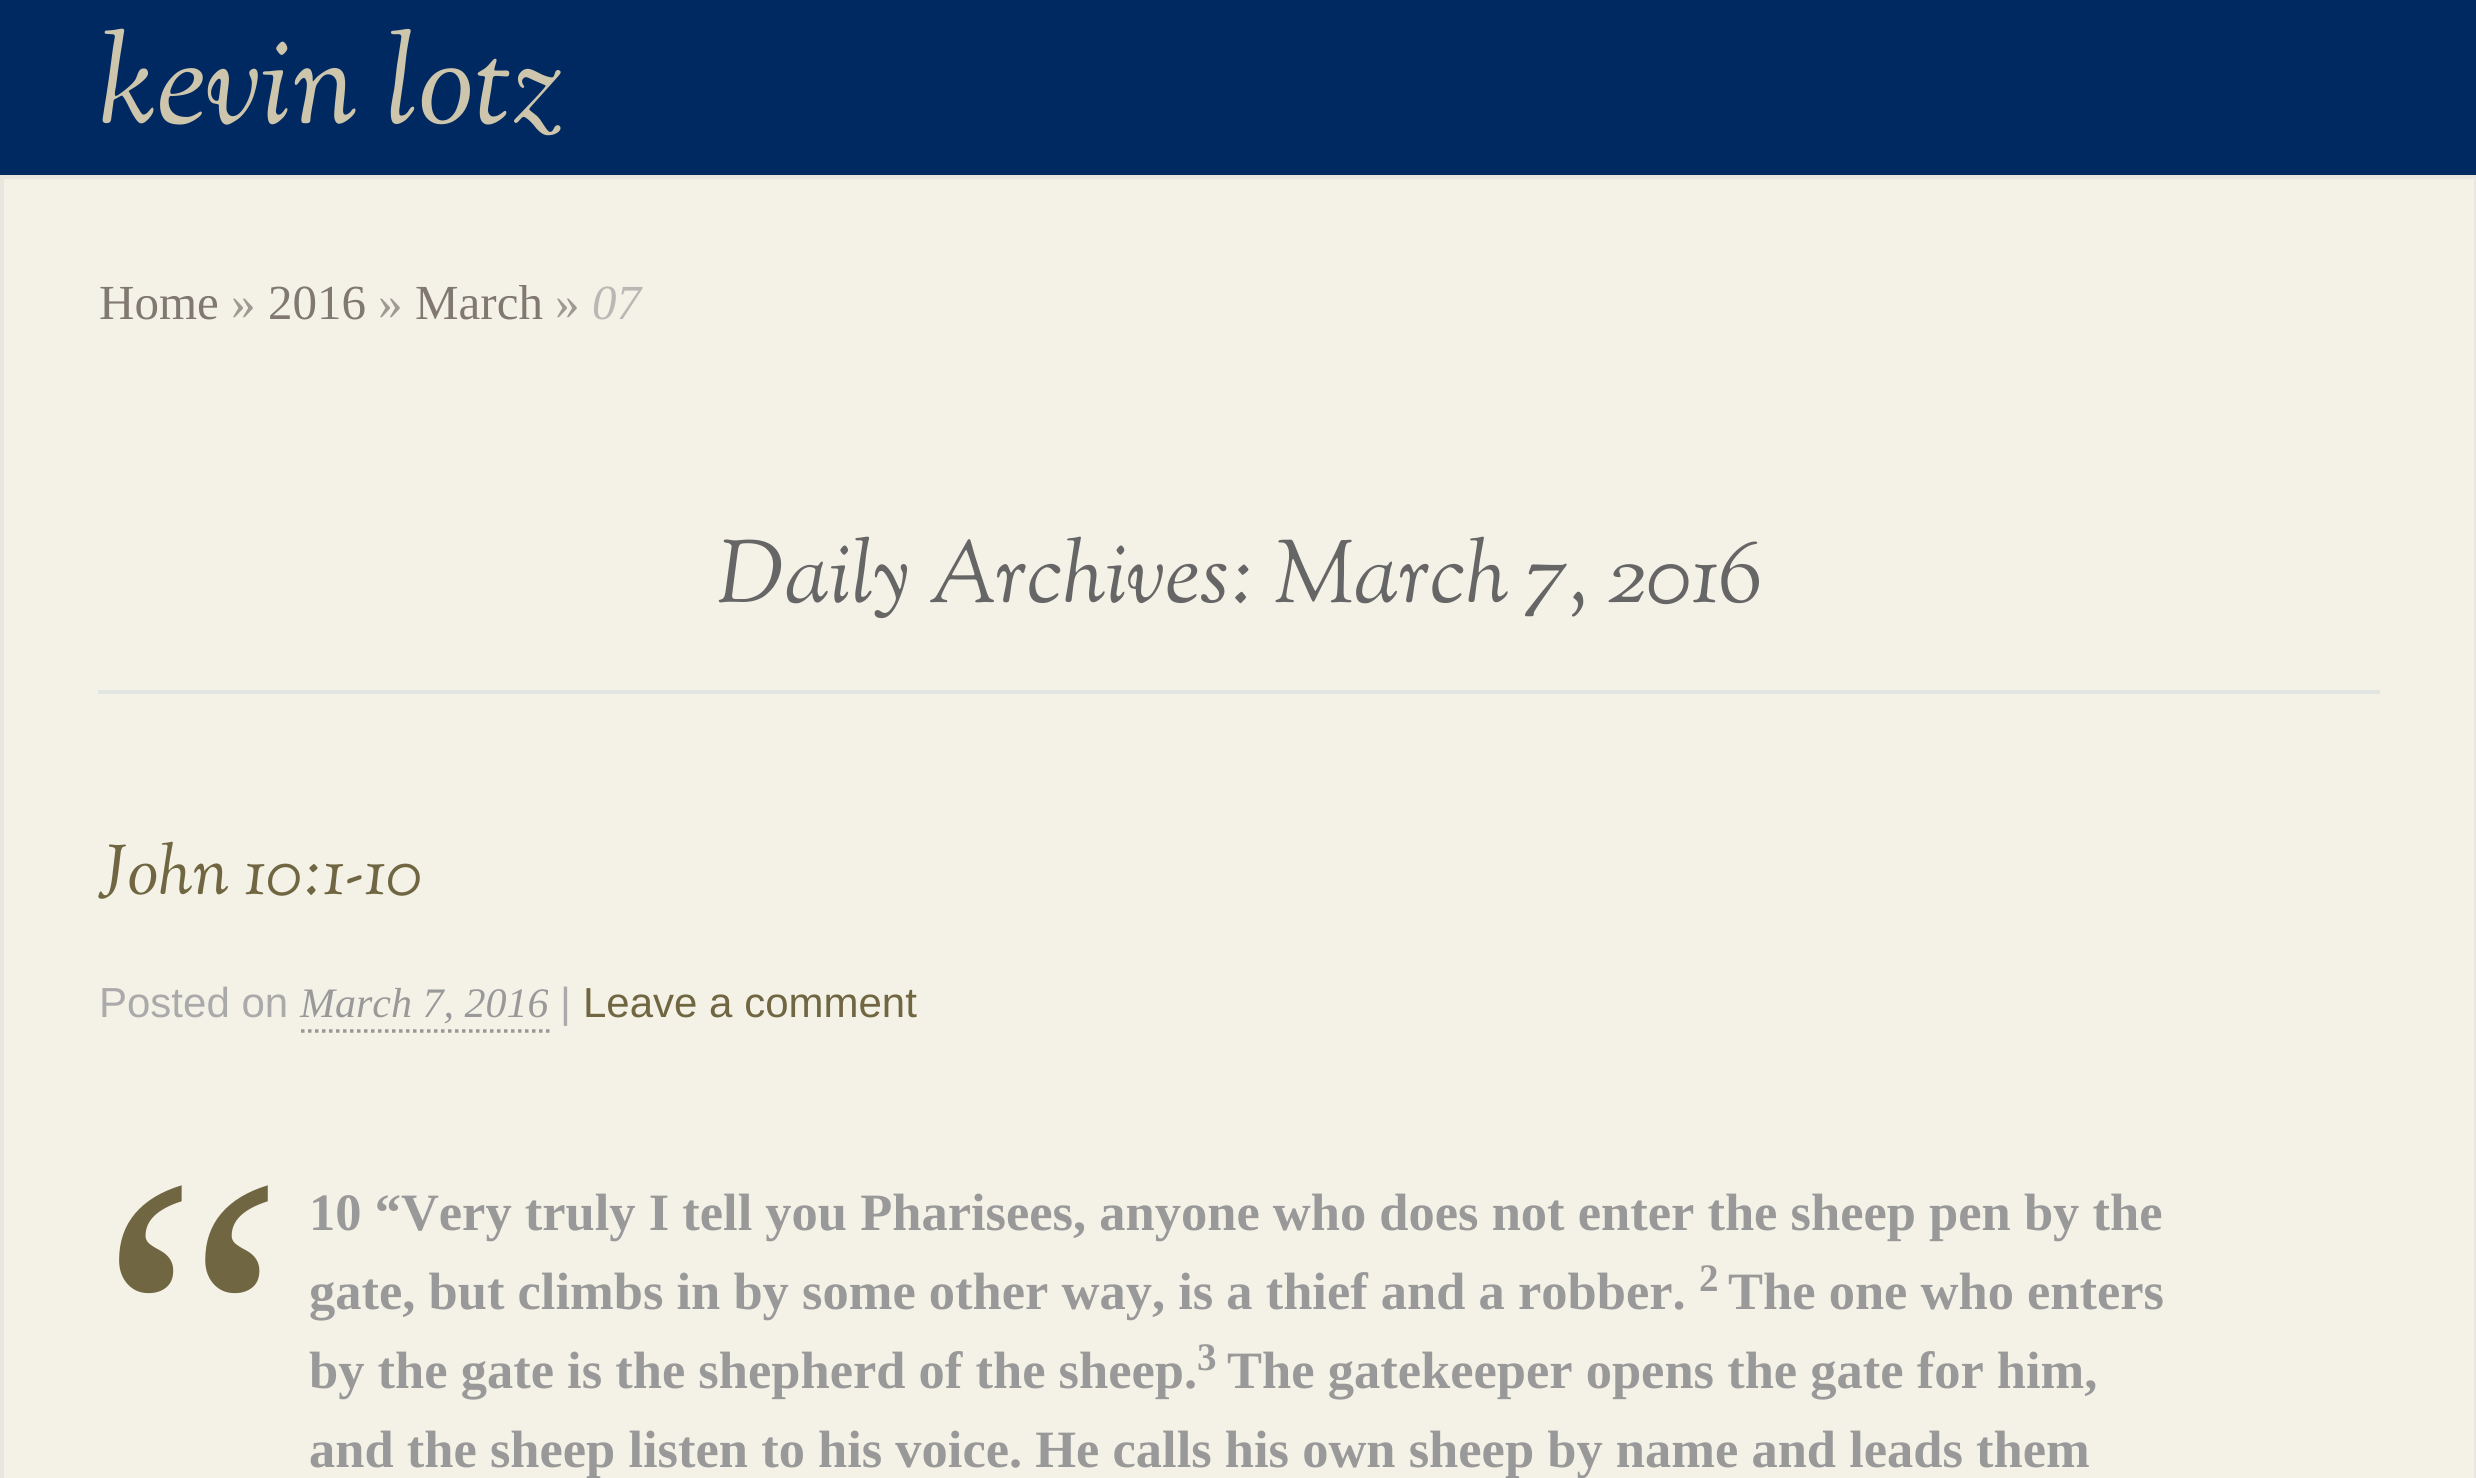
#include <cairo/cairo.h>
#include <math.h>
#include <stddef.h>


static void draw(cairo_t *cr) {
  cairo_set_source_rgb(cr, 0, 41 / 255.0, 97 / 255.0);
  cairo_paint(cr);
  cairo_set_source_rgb(cr, 244 / 255.0, 242 / 255.0, 231 / 255.0);
  cairo_rectangle(cr, 2, 177, 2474, 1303);
  cairo_fill_preserve(cr);
  cairo_set_source_rgb(cr, 232 / 255.0, 230 / 255.0, 222 / 255.0);
  cairo_set_line_width(cr, 4);
  cairo_stroke(cr);
  cairo_set_source_rgb(cr, 226 / 255.0, 230 / 255.0, 226 / 255.0);
  cairo_rectangle(cr, 98, 690, 2282, 4);
  cairo_fill(cr);
  cairo_new_path(cr);
  cairo_move_to(cr, 301, 1031);
  cairo_line_to(cr, 549.5, 1031);
  cairo_set_source_rgb(cr, 153 / 255.0, 153 / 255.0, 153 / 255.0);
  cairo_set_line_width(cr, 3.5);
  cairo_set_dash(cr, (double[]){3.5, 3.5}, 2, 0);
  cairo_stroke(cr);
  cairo_select_font_face(cr, "Sorts Mill Goudy Medium", CAIRO_FONT_SLANT_ITALIC, CAIRO_FONT_WEIGHT_NORMAL);
  cairo_set_font_size(cr, 126);
  cairo_set_source_rgb(cr, 206 / 255.0, 198 / 255.0, 172 / 255.0);
  cairo_move_to(cr, 99, 123);
  cairo_show_text(cr, "kevin lotz");
  cairo_select_font_face(cr, "Liberation Serif", CAIRO_FONT_SLANT_NORMAL, CAIRO_FONT_WEIGHT_NORMAL);
  cairo_set_font_size(cr, 49);
  cairo_set_source_rgb(cr, 128 / 255.0, 120 / 255.0, 113 / 255.0);
  cairo_move_to(cr, 99, 319);
  cairo_show_text(cr, "Home");
  cairo_set_source_rgb(cr, 159 / 255.0, 153 / 255.0, 148 / 255.0);
  cairo_move_to(cr, 231, 319);
  cairo_show_text(cr, "»");
  cairo_set_source_rgb(cr, 128 / 255.0, 120 / 255.0, 113 / 255.0);
  cairo_move_to(cr, 268, 319);
  cairo_show_text(cr, "2016");
  cairo_set_source_rgb(cr, 159 / 255.0, 153 / 255.0, 148 / 255.0);
  cairo_move_to(cr, 378, 319);
  cairo_show_text(cr, "»");
  cairo_set_source_rgb(cr, 128 / 255.0, 120 / 255.0, 113 / 255.0);
  cairo_move_to(cr, 415, 319);
  cairo_show_text(cr, "March");
  cairo_set_source_rgb(cr, 159 / 255.0, 153 / 255.0, 148 / 255.0);
  cairo_move_to(cr, 555, 319);
  cairo_show_text(cr, "»");
  cairo_select_font_face(cr, "Liberation Serif", CAIRO_FONT_SLANT_ITALIC, CAIRO_FONT_WEIGHT_NORMAL);
  cairo_set_source_rgb(cr, 186 / 255.0, 183 / 255.0, 181 / 255.0);
  cairo_move_to(cr, 592, 319);
  cairo_show_text(cr, "07");
  cairo_select_font_face(cr, "Sorts Mill Goudy Medium", CAIRO_FONT_SLANT_ITALIC, CAIRO_FONT_WEIGHT_NORMAL);
  cairo_set_font_size(cr, 87.5);
  cairo_set_source_rgb(cr, 102 / 255.0, 102 / 255.0, 102 / 255.0);
  cairo_move_to(cr, 717, 602);
  cairo_show_text(cr, "Daily Archives: March 7, 2016");
  cairo_set_font_size(cr, 70);
  cairo_set_source_rgb(cr, 112 / 255.0, 103 / 255.0, 66 / 255.0);
  cairo_move_to(cr, 99, 894);
  cairo_show_text(cr, "John 10:1-10");
  cairo_select_font_face(cr, "Liberation Sans", CAIRO_FONT_SLANT_NORMAL, CAIRO_FONT_WEIGHT_NORMAL);
  cairo_set_font_size(cr, 42);
  cairo_set_source_rgb(cr, 170 / 255.0, 170 / 255.0, 170 / 255.0);
  cairo_move_to(cr, 99, 1017);
  cairo_show_text(cr, "Posted on");
  cairo_select_font_face(cr, "Liberation Serif", CAIRO_FONT_SLANT_ITALIC, CAIRO_FONT_WEIGHT_NORMAL);
  cairo_set_source_rgb(cr, 153 / 255.0, 153 / 255.0, 153 / 255.0);
  cairo_move_to(cr, 300, 1017);
  cairo_show_text(cr, "March 7, 2016");
  cairo_select_font_face(cr, "Liberation Sans", CAIRO_FONT_SLANT_NORMAL, CAIRO_FONT_WEIGHT_NORMAL);
  cairo_set_source_rgb(cr, 170 / 255.0, 170 / 255.0, 170 / 255.0);
  cairo_move_to(cr, 560, 1017);
  cairo_show_text(cr, "|");
  cairo_set_source_rgb(cr, 112 / 255.0, 103 / 255.0, 66 / 255.0);
  cairo_move_to(cr, 583, 1017);
  cairo_show_text(cr, "Leave a comment");
  cairo_select_font_face(cr, "Liberation Serif", CAIRO_FONT_SLANT_NORMAL, CAIRO_FONT_WEIGHT_NORMAL);
  cairo_set_font_size(cr, 420);
  cairo_move_to(cr, 99, 1465);
  cairo_show_text(cr, "“");
  cairo_select_font_face(cr, "Liberation Serif", CAIRO_FONT_SLANT_NORMAL, CAIRO_FONT_WEIGHT_BOLD);
  cairo_set_font_size(cr, 52.5);
  cairo_set_source_rgb(cr, 153 / 255.0, 153 / 255.0, 153 / 255.0);
  cairo_move_to(cr, 309, 1230);
  cairo_show_text(cr, "10 “Very truly I tell you Pharisees, anyone who does not enter the sheep pen by the");
  cairo_move_to(cr, 309, 1309);
  cairo_show_text(cr, "gate, but climbs in by some other way, is a thief and a robber.");
  cairo_set_font_size(cr, 39);
  cairo_move_to(cr, 1699, 1291);
  cairo_show_text(cr, "2");
  cairo_set_font_size(cr, 52.5);
  cairo_move_to(cr, 1728, 1309);
  cairo_show_text(cr, "The one who enters");
  cairo_move_to(cr, 309, 1388);
  cairo_show_text(cr, "by the gate is the shepherd of the sheep.");
  cairo_set_font_size(cr, 39);
  cairo_move_to(cr, 1197, 1370);
  cairo_show_text(cr, "3");
  cairo_set_font_size(cr, 52.5);
  cairo_move_to(cr, 1227, 1388);
  cairo_show_text(cr, "The gatekeeper opens the gate for him,");
  cairo_move_to(cr, 309, 1467);
  cairo_show_text(cr, "and the sheep listen to his voice. He calls his own sheep by name and leads them");
}

int main(void) {
  cairo_surface_t *surface = cairo_image_surface_create(CAIRO_FORMAT_RGB24, 2476, 1478);
  cairo_t *cr = cairo_create(surface);
  cairo_font_options_t *options = cairo_font_options_create();
  cairo_font_options_set_hint_metrics(options, CAIRO_HINT_METRICS_OFF);
  cairo_font_options_set_hint_style(options, CAIRO_HINT_STYLE_NONE);
  cairo_set_font_options(cr, options);
  cairo_set_miter_limit(cr, 4);
  draw(cr);
  cairo_surface_write_to_png(surface, "out.png");
  cairo_font_options_destroy(options);
  cairo_destroy(cr);
  cairo_surface_destroy(surface);
  return 0;
}
